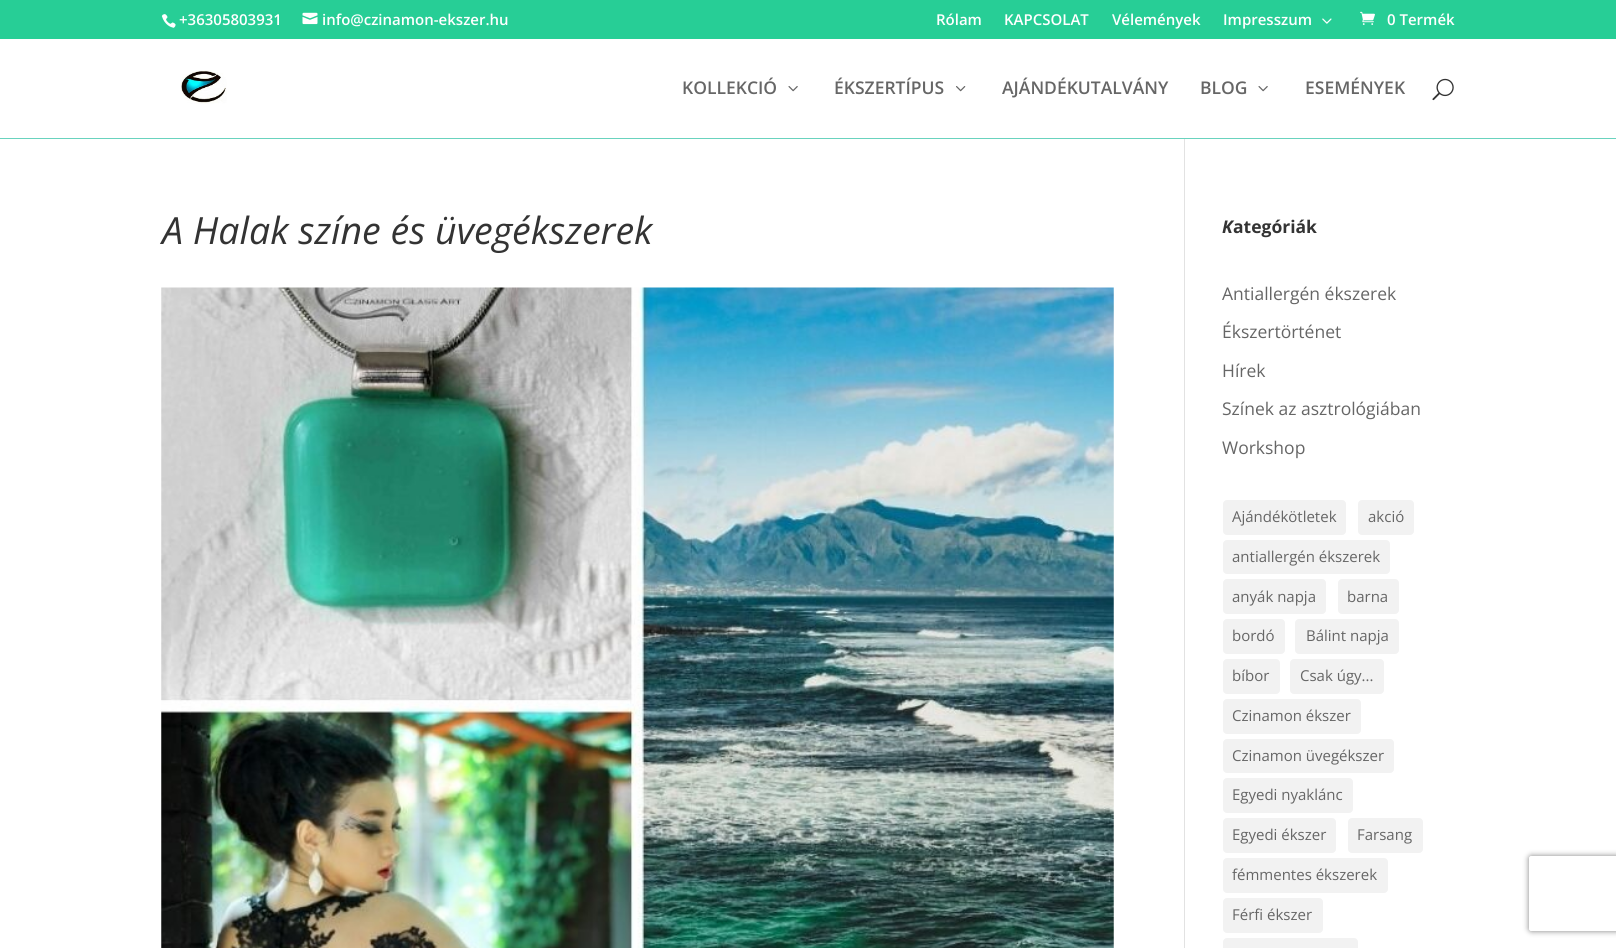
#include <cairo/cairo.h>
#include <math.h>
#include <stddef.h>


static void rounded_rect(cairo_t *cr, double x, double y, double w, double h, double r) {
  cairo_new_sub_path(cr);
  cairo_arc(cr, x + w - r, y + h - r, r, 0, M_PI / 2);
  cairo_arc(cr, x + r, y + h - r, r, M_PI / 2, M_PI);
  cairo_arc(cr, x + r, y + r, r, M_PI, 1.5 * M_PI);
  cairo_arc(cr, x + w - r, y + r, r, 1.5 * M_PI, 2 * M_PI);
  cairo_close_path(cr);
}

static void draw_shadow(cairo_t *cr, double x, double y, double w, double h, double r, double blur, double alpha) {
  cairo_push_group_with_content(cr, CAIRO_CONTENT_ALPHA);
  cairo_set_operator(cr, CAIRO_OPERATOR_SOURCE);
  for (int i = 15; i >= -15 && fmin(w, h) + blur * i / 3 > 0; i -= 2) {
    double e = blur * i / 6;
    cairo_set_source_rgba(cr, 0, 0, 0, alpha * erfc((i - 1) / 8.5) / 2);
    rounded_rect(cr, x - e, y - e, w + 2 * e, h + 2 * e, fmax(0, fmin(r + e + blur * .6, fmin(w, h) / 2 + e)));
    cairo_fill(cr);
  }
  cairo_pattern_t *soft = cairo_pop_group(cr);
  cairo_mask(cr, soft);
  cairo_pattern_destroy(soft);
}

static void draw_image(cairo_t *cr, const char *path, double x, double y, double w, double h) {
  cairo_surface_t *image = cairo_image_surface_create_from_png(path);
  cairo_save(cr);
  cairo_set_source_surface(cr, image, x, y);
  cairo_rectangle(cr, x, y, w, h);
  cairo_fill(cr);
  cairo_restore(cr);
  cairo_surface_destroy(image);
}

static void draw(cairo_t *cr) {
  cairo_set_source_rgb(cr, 1, 1, 1);
  cairo_paint(cr);
  cairo_set_source_rgb(cr, 39 / 255.0, 206 / 255.0, 150 / 255.0);
  cairo_rectangle(cr, 0, 0, 1616, 39);
  cairo_fill(cr);
  draw_image(cr, "images/1.png", 161, 14, 15, 14);
  draw_image(cr, "images/2.png", 302, 12, 16, 13);
  draw_image(cr, "images/3.png", 1322, 18, 10, 6);
  draw_image(cr, "images/4.png", 1360, 11, 15, 14);
  cairo_set_source_rgb(cr, 105 / 255.0, 211 / 255.0, 190 / 255.0);
  cairo_rectangle(cr, 0, 138, 1616, 1);
  cairo_fill(cr);
  draw_image(cr, "images/5.png", 180, 70, 47, 34);
  draw_image(cr, "images/6.png", 788, 86, 10, 6);
  draw_image(cr, "images/7.png", 956, 86, 10, 6);
  draw_image(cr, "images/6.png", 1258, 86, 10, 6);
  draw_image(cr, "images/8.png", 1432, 78, 22, 23);
  cairo_set_source_rgb(cr, 226 / 255.0, 226 / 255.0, 226 / 255.0);
  cairo_rectangle(cr, 1184, 139, 1, 809);
  cairo_fill(cr);
  draw_image(cr, "images/9.png", 161, 287, 953, 661);
  cairo_set_source_rgb(cr, 242 / 255.0, 242 / 255.0, 242 / 255.0);
  rounded_rect(cr, 1223, 500, 123, 35, 4);
  cairo_fill(cr);
  rounded_rect(cr, 1358, 500, 56, 35, 4);
  cairo_fill(cr);
  rounded_rect(cr, 1223, 540, 167, 34, 4);
  cairo_fill(cr);
  rounded_rect(cr, 1223, 579, 103, 35, 4);
  cairo_fill(cr);
  rounded_rect(cr, 1338, 579, 61, 35, 4);
  cairo_fill(cr);
  rounded_rect(cr, 1223, 619, 62, 35, 4);
  cairo_fill(cr);
  rounded_rect(cr, 1295, 619, 104, 35, 4);
  cairo_fill(cr);
  rounded_rect(cr, 1223, 659, 57, 35, 4);
  cairo_fill(cr);
  rounded_rect(cr, 1290, 659, 94, 35, 4);
  cairo_fill(cr);
  rounded_rect(cr, 1223, 699, 138, 35, 4);
  cairo_fill(cr);
  rounded_rect(cr, 1223, 739, 171, 34, 4);
  cairo_fill(cr);
  rounded_rect(cr, 1223, 778, 130, 35, 4);
  cairo_fill(cr);
  rounded_rect(cr, 1223, 818, 113, 35, 4);
  cairo_fill(cr);
  rounded_rect(cr, 1348, 818, 75, 35, 4);
  cairo_fill(cr);
  rounded_rect(cr, 1223, 858, 165, 35, 4);
  cairo_fill(cr);
  rounded_rect(cr, 1223, 898, 100, 35, 4);
  cairo_fill(cr);
  rounded_rect(cr, 1223, 938, 135, 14, 4);
  cairo_fill(cr);
  cairo_save(cr);
  cairo_set_fill_rule(cr, CAIRO_FILL_RULE_EVEN_ODD);
  cairo_new_path(cr);
  cairo_move_to(cr, 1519, 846);
  cairo_line_to(cr, 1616, 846);
  cairo_line_to(cr, 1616, 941);
  cairo_line_to(cr, 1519, 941);
  cairo_close_path(cr);
  cairo_move_to(cr, 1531.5, 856);
  cairo_line_to(cr, 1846.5, 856);
  cairo_curve_to(cr, 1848, 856, 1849, 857, 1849, 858.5);
  cairo_line_to(cr, 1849, 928.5);
  cairo_curve_to(cr, 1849, 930, 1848, 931, 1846.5, 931);
  cairo_line_to(cr, 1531.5, 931);
  cairo_curve_to(cr, 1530, 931, 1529, 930, 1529, 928.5);
  cairo_line_to(cr, 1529, 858.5);
  cairo_curve_to(cr, 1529, 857, 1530, 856, 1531.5, 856);
  cairo_close_path(cr);
  cairo_clip(cr);
  cairo_set_source_rgb(cr, 128 / 255.0, 128 / 255.0, 128 / 255.0);
  draw_shadow(cr, 1529, 856, 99, 75, 2.5, 3, 1);
  cairo_restore(cr);
  cairo_select_font_face(cr, "Open Sans SemiBold", CAIRO_FONT_SLANT_NORMAL, CAIRO_FONT_WEIGHT_NORMAL);
  cairo_set_font_size(cr, 15);
  cairo_set_source_rgb(cr, 1, 1, 1);
  cairo_move_to(cr, 179, 25);
  cairo_show_text(cr, "+36305803931");
  cairo_move_to(cr, 322, 25);
  cairo_show_text(cr, "info@czinamon-ekszer.hu");
  cairo_move_to(cr, 936, 25);
  cairo_show_text(cr, "Rólam");
  cairo_move_to(cr, 1004, 25);
  cairo_show_text(cr, "KAPCSOLAT");
  cairo_move_to(cr, 1112, 25);
  cairo_show_text(cr, "Vélemények");
  cairo_move_to(cr, 1223, 25);
  cairo_show_text(cr, "Impresszum");
  cairo_move_to(cr, 1387, 25);
  cairo_show_text(cr, "0 Termék");
  cairo_set_font_size(cr, 17.5);
  cairo_set_source_rgb(cr, 102 / 255.0, 102 / 255.0, 102 / 255.0);
  cairo_move_to(cr, 682, 94);
  cairo_show_text(cr, "KOLLEKCIÓ");
  cairo_move_to(cr, 834, 94);
  cairo_show_text(cr, "ÉKSZERTÍPUS");
  cairo_move_to(cr, 1002, 94);
  cairo_show_text(cr, "AJÁNDÉKUTALVÁNY");
  cairo_move_to(cr, 1200, 94);
  cairo_show_text(cr, "BLOG");
  cairo_move_to(cr, 1305, 94);
  cairo_show_text(cr, "ESEMÉNYEK");
  cairo_select_font_face(cr, "Open Sans", CAIRO_FONT_SLANT_ITALIC, CAIRO_FONT_WEIGHT_NORMAL);
  cairo_set_font_size(cr, 37.5);
  cairo_set_source_rgb(cr, 51 / 255.0, 51 / 255.0, 51 / 255.0);
  cairo_move_to(cr, 162, 244);
  cairo_show_text(cr, "A Halak színe és üvegékszerek");
  cairo_select_font_face(cr, "Open Sans", CAIRO_FONT_SLANT_ITALIC, CAIRO_FONT_WEIGHT_BOLD);
  cairo_set_font_size(cr, 17.5);
  cairo_move_to(cr, 1222, 233);
  cairo_show_text(cr, "K");
  cairo_select_font_face(cr, "Open Sans", CAIRO_FONT_SLANT_NORMAL, CAIRO_FONT_WEIGHT_BOLD);
  cairo_move_to(cr, 1233, 233);
  cairo_show_text(cr, "ategóriák");
  cairo_select_font_face(cr, "Open Sans", CAIRO_FONT_SLANT_NORMAL, CAIRO_FONT_WEIGHT_NORMAL);
  cairo_set_source_rgb(cr, 102 / 255.0, 102 / 255.0, 102 / 255.0);
  cairo_move_to(cr, 1222, 300);
  cairo_show_text(cr, "Antiallergén ékszerek");
  cairo_move_to(cr, 1222, 338);
  cairo_show_text(cr, "Ékszertörténet");
  cairo_move_to(cr, 1222, 377);
  cairo_show_text(cr, "Hírek");
  cairo_move_to(cr, 1222, 415);
  cairo_show_text(cr, "Színek az asztrológiában");
  cairo_move_to(cr, 1222, 454);
  cairo_show_text(cr, "Workshop");
  cairo_set_font_size(cr, 15);
  cairo_move_to(cr, 1232, 522);
  cairo_show_text(cr, "Ajándékötletek");
  cairo_move_to(cr, 1368, 522);
  cairo_show_text(cr, "akció");
  cairo_move_to(cr, 1232, 562);
  cairo_show_text(cr, "antiallergén ékszerek");
  cairo_move_to(cr, 1232, 602);
  cairo_show_text(cr, "anyák napja");
  cairo_move_to(cr, 1347, 602);
  cairo_show_text(cr, "barna");
  cairo_move_to(cr, 1232, 641);
  cairo_show_text(cr, "bordó");
  cairo_move_to(cr, 1306, 641);
  cairo_show_text(cr, "Bálint napja");
  cairo_move_to(cr, 1232, 681);
  cairo_show_text(cr, "bíbor");
  cairo_move_to(cr, 1300, 681);
  cairo_show_text(cr, "Csak úgy...");
  cairo_move_to(cr, 1232, 721);
  cairo_show_text(cr, "Czinamon ékszer");
  cairo_move_to(cr, 1232, 761);
  cairo_show_text(cr, "Czinamon üvegékszer");
  cairo_move_to(cr, 1232, 800);
  cairo_show_text(cr, "Egyedi nyaklánc");
  cairo_move_to(cr, 1232, 840);
  cairo_show_text(cr, "Egyedi ékszer");
  cairo_move_to(cr, 1357, 840);
  cairo_show_text(cr, "Farsang");
  cairo_move_to(cr, 1232, 880);
  cairo_show_text(cr, "fémmentes ékszerek");
  cairo_move_to(cr, 1232, 920);
  cairo_show_text(cr, "Férfi ékszer");
}

int main(void) {
  cairo_surface_t *surface = cairo_image_surface_create(CAIRO_FORMAT_RGB24, 1616, 948);
  cairo_t *cr = cairo_create(surface);
  cairo_font_options_t *options = cairo_font_options_create();
  cairo_font_options_set_hint_metrics(options, CAIRO_HINT_METRICS_OFF);
  cairo_font_options_set_hint_style(options, CAIRO_HINT_STYLE_NONE);
  cairo_set_font_options(cr, options);
  cairo_set_miter_limit(cr, 4);
  draw(cr);
  cairo_surface_write_to_png(surface, "out.png");
  cairo_font_options_destroy(options);
  cairo_destroy(cr);
  cairo_surface_destroy(surface);
  return 0;
}
